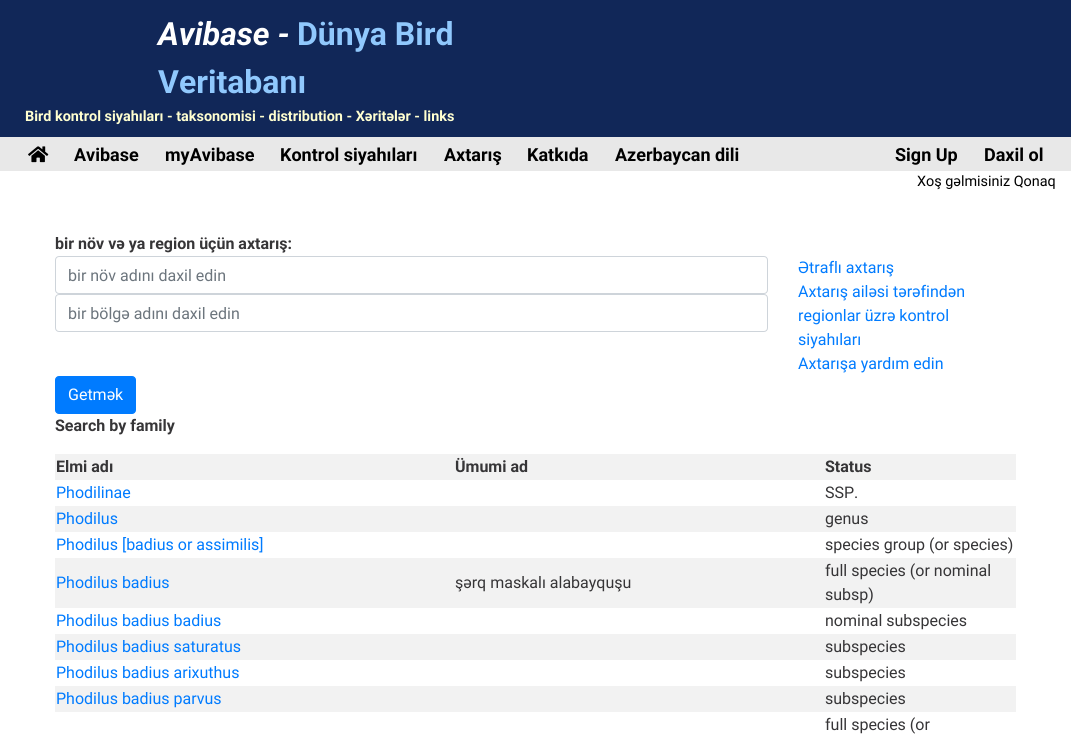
#include <cairo/cairo.h>
#include <math.h>
#include <stddef.h>


static void rounded_rect(cairo_t *cr, double x, double y, double w, double h, double r) {
  cairo_new_sub_path(cr);
  cairo_arc(cr, x + w - r, y + h - r, r, 0, M_PI / 2);
  cairo_arc(cr, x + r, y + h - r, r, M_PI / 2, M_PI);
  cairo_arc(cr, x + r, y + r, r, M_PI, 1.5 * M_PI);
  cairo_arc(cr, x + w - r, y + r, r, 1.5 * M_PI, 2 * M_PI);
  cairo_close_path(cr);
}

static void draw_image(cairo_t *cr, const char *path, double x, double y, double w, double h) {
  cairo_surface_t *image = cairo_image_surface_create_from_png(path);
  cairo_save(cr);
  cairo_set_source_surface(cr, image, x, y);
  cairo_rectangle(cr, x, y, w, h);
  cairo_fill(cr);
  cairo_restore(cr);
  cairo_surface_destroy(image);
}

static void draw(cairo_t *cr) {
  cairo_set_source_rgb(cr, 1, 1, 1);
  cairo_paint(cr);
  cairo_set_source_rgb(cr, 17 / 255.0, 39 / 255.0, 88 / 255.0);
  cairo_rectangle(cr, 0, 0, 1071, 137);
  cairo_fill(cr);
  cairo_set_source_rgb(cr, 232 / 255.0, 232 / 255.0, 232 / 255.0);
  cairo_rectangle(cr, 0, 137, 1071, 34);
  cairo_fill(cr);
  draw_image(cr, "images/1.png", 28, 146, 21, 17);
  rounded_rect(cr, 55.5, 256.5, 712, 37, 3.5);
  cairo_set_source_rgb(cr, 206 / 255.0, 212 / 255.0, 218 / 255.0);
  cairo_set_line_width(cr, 1);
  cairo_stroke(cr);
  rounded_rect(cr, 55.5, 294.5, 712, 37, 3.5);
  cairo_stroke(cr);
  cairo_set_source_rgb(cr, 0, 123 / 255.0, 1);
  rounded_rect(cr, 55.5, 376.5, 80, 37, 3.5);
  cairo_fill_preserve(cr);
  cairo_stroke(cr);
  cairo_set_source_rgb(cr, 242 / 255.0, 242 / 255.0, 242 / 255.0);
  cairo_rectangle(cr, 55, 454, 961, 26);
  cairo_fill(cr);
  cairo_rectangle(cr, 55, 506, 961, 26);
  cairo_fill(cr);
  cairo_rectangle(cr, 55, 558, 961, 50);
  cairo_fill(cr);
  cairo_rectangle(cr, 55, 634, 961, 26);
  cairo_fill(cr);
  cairo_rectangle(cr, 55, 686, 961, 26);
  cairo_fill(cr);
  cairo_select_font_face(cr, "Roboto", CAIRO_FONT_SLANT_ITALIC, CAIRO_FONT_WEIGHT_BOLD);
  cairo_set_font_size(cr, 32);
  cairo_set_source_rgb(cr, 1, 1, 1);
  cairo_move_to(cr, 158, 45);
  cairo_show_text(cr, "Avibase -");
  cairo_select_font_face(cr, "Roboto", CAIRO_FONT_SLANT_NORMAL, CAIRO_FONT_WEIGHT_BOLD);
  cairo_set_source_rgb(cr, 144 / 255.0, 200 / 255.0, 253 / 255.0);
  cairo_move_to(cr, 297, 45);
  cairo_show_text(cr, "Dünya Bird");
  cairo_move_to(cr, 158, 93);
  cairo_show_text(cr, "Veritabanı");
  cairo_set_font_size(cr, 14.4);
  cairo_set_source_rgb(cr, 1, 1, 208 / 255.0);
  cairo_move_to(cr, 25, 121);
  cairo_show_text(cr, "Bird kontrol siyahıları - taksonomisi - distribution - Xəritələr - links");
  cairo_set_font_size(cr, 18);
  cairo_set_source_rgb(cr, 0, 0, 0);
  cairo_move_to(cr, 74, 161);
  cairo_show_text(cr, "Avibase");
  cairo_move_to(cr, 165, 161);
  cairo_show_text(cr, "myAvibase");
  cairo_move_to(cr, 280, 161);
  cairo_show_text(cr, "Kontrol siyahıları");
  cairo_move_to(cr, 444, 161);
  cairo_show_text(cr, "Axtarış");
  cairo_move_to(cr, 527, 161);
  cairo_show_text(cr, "Katkıda");
  cairo_move_to(cr, 615, 161);
  cairo_show_text(cr, "Azerbaycan dili");
  cairo_move_to(cr, 895, 161);
  cairo_show_text(cr, "Sign Up");
  cairo_move_to(cr, 984, 161);
  cairo_show_text(cr, "Daxil ol");
  cairo_select_font_face(cr, "Roboto", CAIRO_FONT_SLANT_NORMAL, CAIRO_FONT_WEIGHT_NORMAL);
  cairo_set_font_size(cr, 14.4);
  cairo_move_to(cr, 917, 186);
  cairo_show_text(cr, "Xoş gəlmisiniz Qonaq");
  cairo_select_font_face(cr, "Roboto", CAIRO_FONT_SLANT_NORMAL, CAIRO_FONT_WEIGHT_BOLD);
  cairo_set_font_size(cr, 16);
  cairo_set_source_rgb(cr, 54 / 255.0, 53 / 255.0, 55 / 255.0);
  cairo_move_to(cr, 55, 249);
  cairo_show_text(cr, "bir növ və ya region üçün axtarış:");
  cairo_select_font_face(cr, "Roboto", CAIRO_FONT_SLANT_NORMAL, CAIRO_FONT_WEIGHT_NORMAL);
  cairo_set_source_rgb(cr, 108 / 255.0, 117 / 255.0, 125 / 255.0);
  cairo_move_to(cr, 68, 281);
  cairo_show_text(cr, "bir növ adını daxil edin");
  cairo_move_to(cr, 68, 319);
  cairo_show_text(cr, "bir bölgə adını daxil edin");
  cairo_set_source_rgb(cr, 0, 123 / 255.0, 1);
  cairo_move_to(cr, 798, 273);
  cairo_show_text(cr, "Ətraflı axtarış");
  cairo_move_to(cr, 798, 297);
  cairo_show_text(cr, "Axtarış ailəsi tərəfindən");
  cairo_move_to(cr, 798, 321);
  cairo_show_text(cr, "regionlar üzrə kontrol");
  cairo_move_to(cr, 798, 345);
  cairo_show_text(cr, "siyahıları");
  cairo_move_to(cr, 798, 369);
  cairo_show_text(cr, "Axtarışa yardım edin");
  cairo_set_source_rgb(cr, 1, 1, 1);
  cairo_move_to(cr, 68, 400);
  cairo_show_text(cr, "Getmək");
  cairo_select_font_face(cr, "Roboto", CAIRO_FONT_SLANT_NORMAL, CAIRO_FONT_WEIGHT_BOLD);
  cairo_set_source_rgb(cr, 54 / 255.0, 53 / 255.0, 55 / 255.0);
  cairo_move_to(cr, 55, 431);
  cairo_show_text(cr, "Search by family");
  cairo_move_to(cr, 56, 472);
  cairo_show_text(cr, "Elmi adı");
  cairo_move_to(cr, 455, 472);
  cairo_show_text(cr, "Ümumi ad");
  cairo_move_to(cr, 825, 472);
  cairo_show_text(cr, "Status");
  cairo_select_font_face(cr, "Roboto", CAIRO_FONT_SLANT_NORMAL, CAIRO_FONT_WEIGHT_NORMAL);
  cairo_set_source_rgb(cr, 0, 123 / 255.0, 1);
  cairo_move_to(cr, 56, 498);
  cairo_show_text(cr, "Phodilinae");
  cairo_set_source_rgb(cr, 54 / 255.0, 53 / 255.0, 55 / 255.0);
  cairo_move_to(cr, 825, 498);
  cairo_show_text(cr, "SSP.");
  cairo_set_source_rgb(cr, 0, 123 / 255.0, 1);
  cairo_move_to(cr, 56, 524);
  cairo_show_text(cr, "Phodilus");
  cairo_set_source_rgb(cr, 54 / 255.0, 53 / 255.0, 55 / 255.0);
  cairo_move_to(cr, 825, 524);
  cairo_show_text(cr, "genus");
  cairo_set_source_rgb(cr, 0, 123 / 255.0, 1);
  cairo_move_to(cr, 56, 550);
  cairo_show_text(cr, "Phodilus [badius or assimilis]");
  cairo_set_source_rgb(cr, 54 / 255.0, 53 / 255.0, 55 / 255.0);
  cairo_move_to(cr, 825, 550);
  cairo_show_text(cr, "species group (or species)");
  cairo_set_source_rgb(cr, 0, 123 / 255.0, 1);
  cairo_move_to(cr, 56, 588);
  cairo_show_text(cr, "Phodilus badius");
  cairo_set_source_rgb(cr, 54 / 255.0, 53 / 255.0, 55 / 255.0);
  cairo_move_to(cr, 455, 588);
  cairo_show_text(cr, "şərq maskalı alabayquşu");
  cairo_move_to(cr, 825, 576);
  cairo_show_text(cr, "full species (or nominal");
  cairo_move_to(cr, 825, 600);
  cairo_show_text(cr, "subsp)");
  cairo_set_source_rgb(cr, 0, 123 / 255.0, 1);
  cairo_move_to(cr, 56, 626);
  cairo_show_text(cr, "Phodilus badius badius");
  cairo_set_source_rgb(cr, 54 / 255.0, 53 / 255.0, 55 / 255.0);
  cairo_move_to(cr, 825, 626);
  cairo_show_text(cr, "nominal subspecies");
  cairo_set_source_rgb(cr, 0, 123 / 255.0, 1);
  cairo_move_to(cr, 56, 652);
  cairo_show_text(cr, "Phodilus badius saturatus");
  cairo_set_source_rgb(cr, 54 / 255.0, 53 / 255.0, 55 / 255.0);
  cairo_move_to(cr, 825, 652);
  cairo_show_text(cr, "subspecies");
  cairo_set_source_rgb(cr, 0, 123 / 255.0, 1);
  cairo_move_to(cr, 56, 678);
  cairo_show_text(cr, "Phodilus badius arixuthus");
  cairo_set_source_rgb(cr, 54 / 255.0, 53 / 255.0, 55 / 255.0);
  cairo_move_to(cr, 825, 678);
  cairo_show_text(cr, "subspecies");
  cairo_set_source_rgb(cr, 0, 123 / 255.0, 1);
  cairo_move_to(cr, 56, 704);
  cairo_show_text(cr, "Phodilus badius parvus");
  cairo_set_source_rgb(cr, 54 / 255.0, 53 / 255.0, 55 / 255.0);
  cairo_move_to(cr, 825, 704);
  cairo_show_text(cr, "subspecies");
  cairo_move_to(cr, 825, 730);
  cairo_show_text(cr, "full species (or");
}

int main(void) {
  cairo_surface_t *surface = cairo_image_surface_create(CAIRO_FORMAT_RGB24, 1071, 735);
  cairo_t *cr = cairo_create(surface);
  cairo_font_options_t *options = cairo_font_options_create();
  cairo_font_options_set_hint_metrics(options, CAIRO_HINT_METRICS_OFF);
  cairo_font_options_set_hint_style(options, CAIRO_HINT_STYLE_NONE);
  cairo_set_font_options(cr, options);
  cairo_set_miter_limit(cr, 4);
  draw(cr);
  cairo_surface_write_to_png(surface, "out.png");
  cairo_font_options_destroy(options);
  cairo_destroy(cr);
  cairo_surface_destroy(surface);
  return 0;
}
